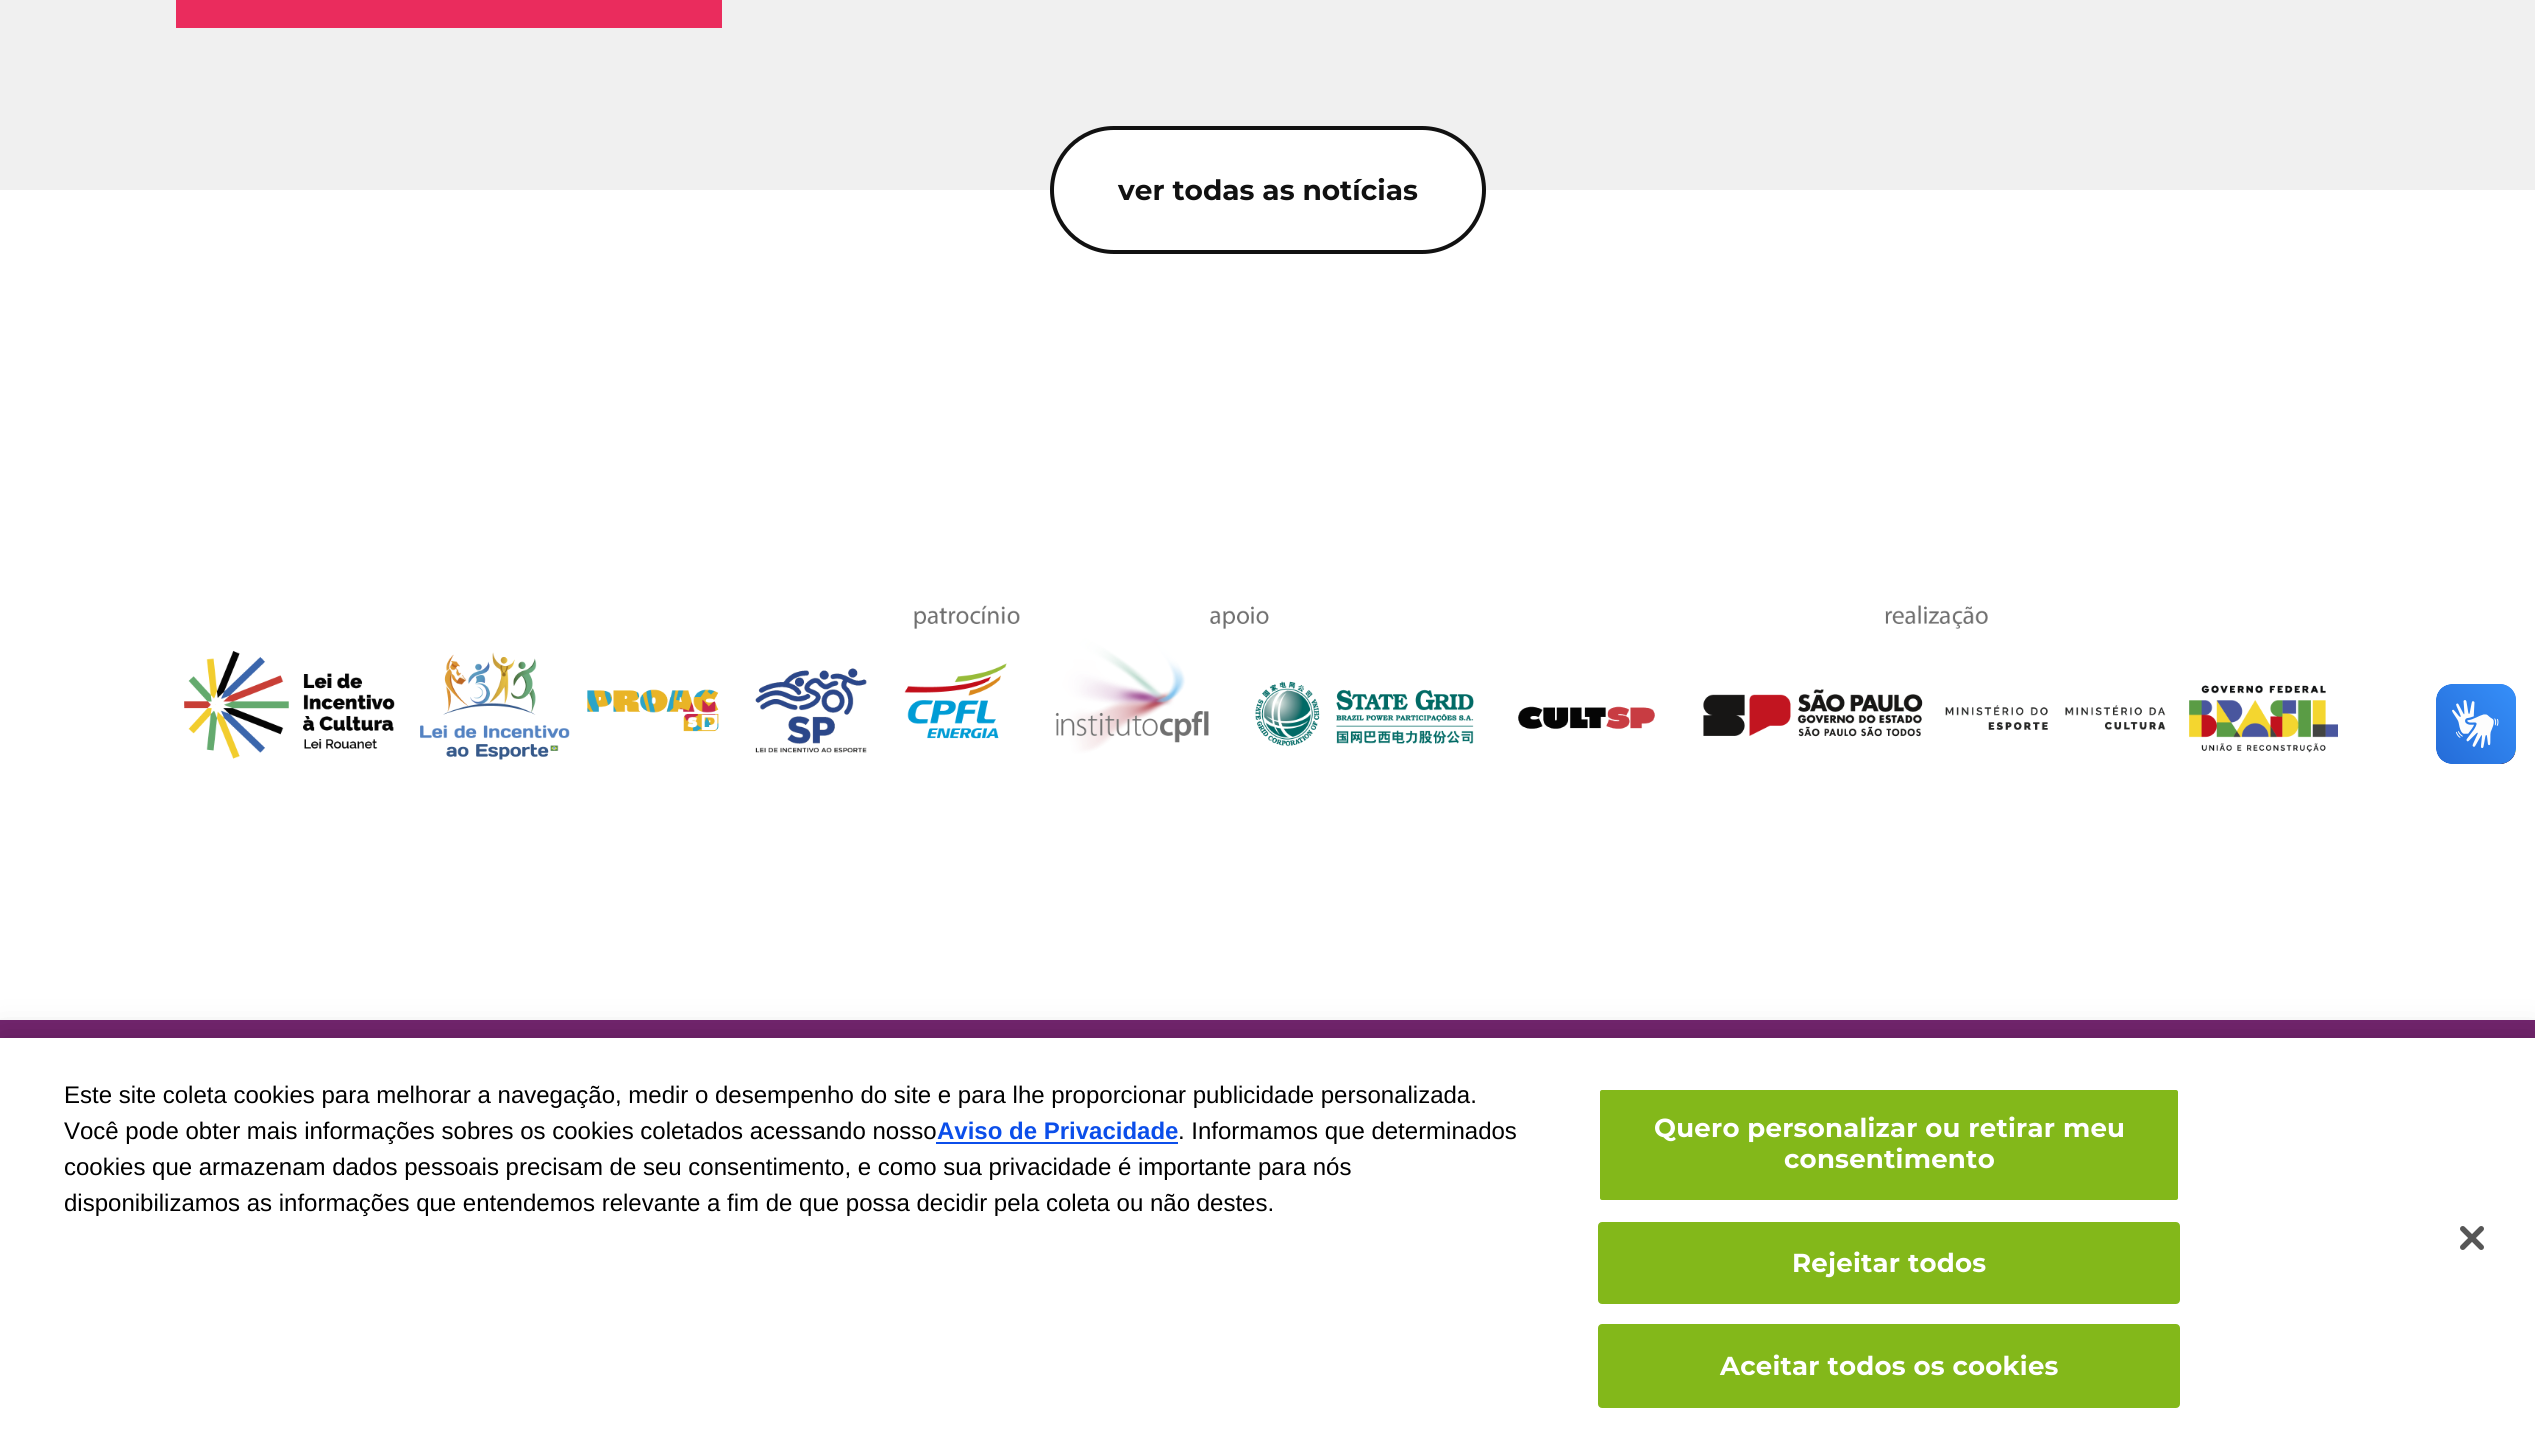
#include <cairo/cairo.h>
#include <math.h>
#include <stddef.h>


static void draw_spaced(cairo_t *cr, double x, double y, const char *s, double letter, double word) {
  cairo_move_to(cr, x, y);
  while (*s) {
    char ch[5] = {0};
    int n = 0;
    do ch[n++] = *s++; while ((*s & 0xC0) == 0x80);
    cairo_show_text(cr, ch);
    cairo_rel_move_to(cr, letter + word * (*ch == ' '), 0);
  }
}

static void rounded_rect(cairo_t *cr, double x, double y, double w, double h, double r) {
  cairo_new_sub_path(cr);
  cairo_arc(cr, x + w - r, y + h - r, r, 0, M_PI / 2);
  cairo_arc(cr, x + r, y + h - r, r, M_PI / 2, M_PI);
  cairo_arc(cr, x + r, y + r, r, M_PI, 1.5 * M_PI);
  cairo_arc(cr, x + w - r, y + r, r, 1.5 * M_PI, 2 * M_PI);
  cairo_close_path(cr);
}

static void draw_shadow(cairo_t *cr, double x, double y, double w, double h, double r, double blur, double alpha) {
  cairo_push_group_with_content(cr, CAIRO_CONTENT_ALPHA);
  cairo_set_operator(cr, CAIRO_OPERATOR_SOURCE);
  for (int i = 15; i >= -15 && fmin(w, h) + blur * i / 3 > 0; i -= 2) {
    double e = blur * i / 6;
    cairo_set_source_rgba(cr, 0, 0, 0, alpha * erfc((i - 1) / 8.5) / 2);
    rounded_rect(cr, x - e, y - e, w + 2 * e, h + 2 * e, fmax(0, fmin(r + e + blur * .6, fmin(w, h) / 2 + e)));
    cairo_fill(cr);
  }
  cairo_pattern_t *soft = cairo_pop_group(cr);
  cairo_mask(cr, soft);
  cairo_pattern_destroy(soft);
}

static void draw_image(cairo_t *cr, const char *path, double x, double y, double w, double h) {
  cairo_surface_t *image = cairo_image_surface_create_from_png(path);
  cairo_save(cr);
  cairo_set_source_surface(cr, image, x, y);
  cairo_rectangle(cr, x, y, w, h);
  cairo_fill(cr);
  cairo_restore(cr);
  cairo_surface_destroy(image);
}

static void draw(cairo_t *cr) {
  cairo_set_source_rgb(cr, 1, 1, 1);
  cairo_paint(cr);
  cairo_set_source_rgb(cr, 240 / 255.0, 240 / 255.0, 240 / 255.0);
  cairo_rectangle(cr, 0, 0, 2535, 190);
  cairo_fill(cr);
  cairo_set_source_rgb(cr, 234 / 255.0, 44 / 255.0, 93 / 255.0);
  cairo_rectangle(cr, 176, 0, 546, 28);
  cairo_fill(cr);
  cairo_set_source_rgb(cr, 1, 1, 1);
  rounded_rect(cr, 1052, 128, 432, 124, 62);
  cairo_fill_preserve(cr);
  cairo_set_source_rgb(cr, 17 / 255.0, 17 / 255.0, 17 / 255.0);
  cairo_set_line_width(cr, 4);
  cairo_stroke(cr);
  draw_image(cr, "images/1.png", 184, 605, 2154, 155);
  cairo_set_source_rgb(cr, 115 / 255.0, 37 / 255.0, 110 / 255.0);
  cairo_rectangle(cr, 0, 1020, 2535, 18);
  cairo_fill(cr);
  draw_image(cr, "images/2.png", 2436, 684, 80, 80);
  draw_image(cr, "images/3.png", 2436, 684, 80, 80);
  cairo_set_source_rgb(cr, 0, 0, 0);
  draw_shadow(cr, 0, 1038, 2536, 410, 0, 18, 0.2);
  cairo_set_source_rgb(cr, 1, 1, 1);
  cairo_rectangle(cr, 0, 1038, 2535, 409);
  cairo_fill(cr);
  cairo_set_source_rgb(cr, 11 / 255.0, 78 / 255.0, 234 / 255.0);
  cairo_rectangle(cr, 936, 1142, 242, 2);
  cairo_fill(cr);
  cairo_set_source_rgb(cr, 131 / 255.0, 184 / 255.0, 26 / 255.0);
  rounded_rect(cr, 1599, 1089, 580, 112, 3);
  cairo_fill_preserve(cr);
  cairo_set_source_rgb(cr, 1, 1, 1);
  cairo_set_line_width(cr, 2);
  cairo_stroke(cr);
  cairo_set_source_rgb(cr, 131 / 255.0, 184 / 255.0, 26 / 255.0);
  rounded_rect(cr, 1599, 1223, 580, 80, 3);
  cairo_fill_preserve(cr);
  cairo_stroke(cr);
  rounded_rect(cr, 1599, 1325, 580, 82, 3);
  cairo_fill_preserve(cr);
  cairo_stroke(cr);
  draw_image(cr, "images/4.png", 2460, 1226, 24, 24);
  cairo_select_font_face(cr, "Montserrat", CAIRO_FONT_SLANT_NORMAL, CAIRO_FONT_WEIGHT_BOLD);
  cairo_set_font_size(cr, 28);
  cairo_set_source_rgb(cr, 17 / 255.0, 17 / 255.0, 17 / 255.0);
  cairo_move_to(cr, 1118, 200);
  cairo_show_text(cr, "ver todas as notícias");
  cairo_select_font_face(cr, "Liberation Sans", CAIRO_FONT_SLANT_NORMAL, CAIRO_FONT_WEIGHT_NORMAL);
  cairo_set_font_size(cr, 24);
  cairo_set_source_rgb(cr, 0, 0, 0);
  cairo_move_to(cr, 64, 1103);
  cairo_show_text(cr, "Este site coleta cookies para melhorar a navegação, medir o desempenho do site e para lhe proporcionar publicidade personalizada.");
  cairo_move_to(cr, 64, 1139);
  cairo_show_text(cr, "Você pode obter mais informações sobres os cookies coletados acessando nosso");
  cairo_select_font_face(cr, "Liberation Sans", CAIRO_FONT_SLANT_NORMAL, CAIRO_FONT_WEIGHT_BOLD);
  cairo_set_source_rgb(cr, 11 / 255.0, 78 / 255.0, 234 / 255.0);
  cairo_move_to(cr, 937, 1139);
  cairo_show_text(cr, "Aviso de Privacidade");
  cairo_select_font_face(cr, "Liberation Sans", CAIRO_FONT_SLANT_NORMAL, CAIRO_FONT_WEIGHT_NORMAL);
  cairo_set_source_rgb(cr, 0, 0, 0);
  cairo_move_to(cr, 1178, 1139);
  cairo_show_text(cr, ". Informamos que determinados");
  cairo_move_to(cr, 64, 1175);
  cairo_show_text(cr, "cookies que armazenam dados pessoais precisam de seu consentimento, e como sua privacidade é importante para nós");
  cairo_move_to(cr, 64, 1211);
  cairo_show_text(cr, "disponibilizamos as informações que entendemos relevante a fim de que possa decidir pela coleta ou não destes.");
  cairo_select_font_face(cr, "Montserrat", CAIRO_FONT_SLANT_NORMAL, CAIRO_FONT_WEIGHT_BOLD);
  cairo_set_font_size(cr, 26);
  cairo_set_source_rgb(cr, 1, 1, 1);
  draw_spaced(cr, 1654, 1137, "Quero personalizar ou retirar meu", 0.25, 0);
  draw_spaced(cr, 1784, 1168, "consentimento", 0.25, 0);
  draw_spaced(cr, 1792, 1272, "Rejeitar todos", 0.25, 0);
  draw_spaced(cr, 1720, 1375, "Aceitar todos os cookies", 0.25, 0);
}

int main(void) {
  cairo_surface_t *surface = cairo_image_surface_create(CAIRO_FORMAT_RGB24, 2535, 1447);
  cairo_t *cr = cairo_create(surface);
  cairo_font_options_t *options = cairo_font_options_create();
  cairo_font_options_set_hint_metrics(options, CAIRO_HINT_METRICS_OFF);
  cairo_font_options_set_hint_style(options, CAIRO_HINT_STYLE_NONE);
  cairo_set_font_options(cr, options);
  cairo_set_miter_limit(cr, 4);
  draw(cr);
  cairo_surface_write_to_png(surface, "out.png");
  cairo_font_options_destroy(options);
  cairo_destroy(cr);
  cairo_surface_destroy(surface);
  return 0;
}
